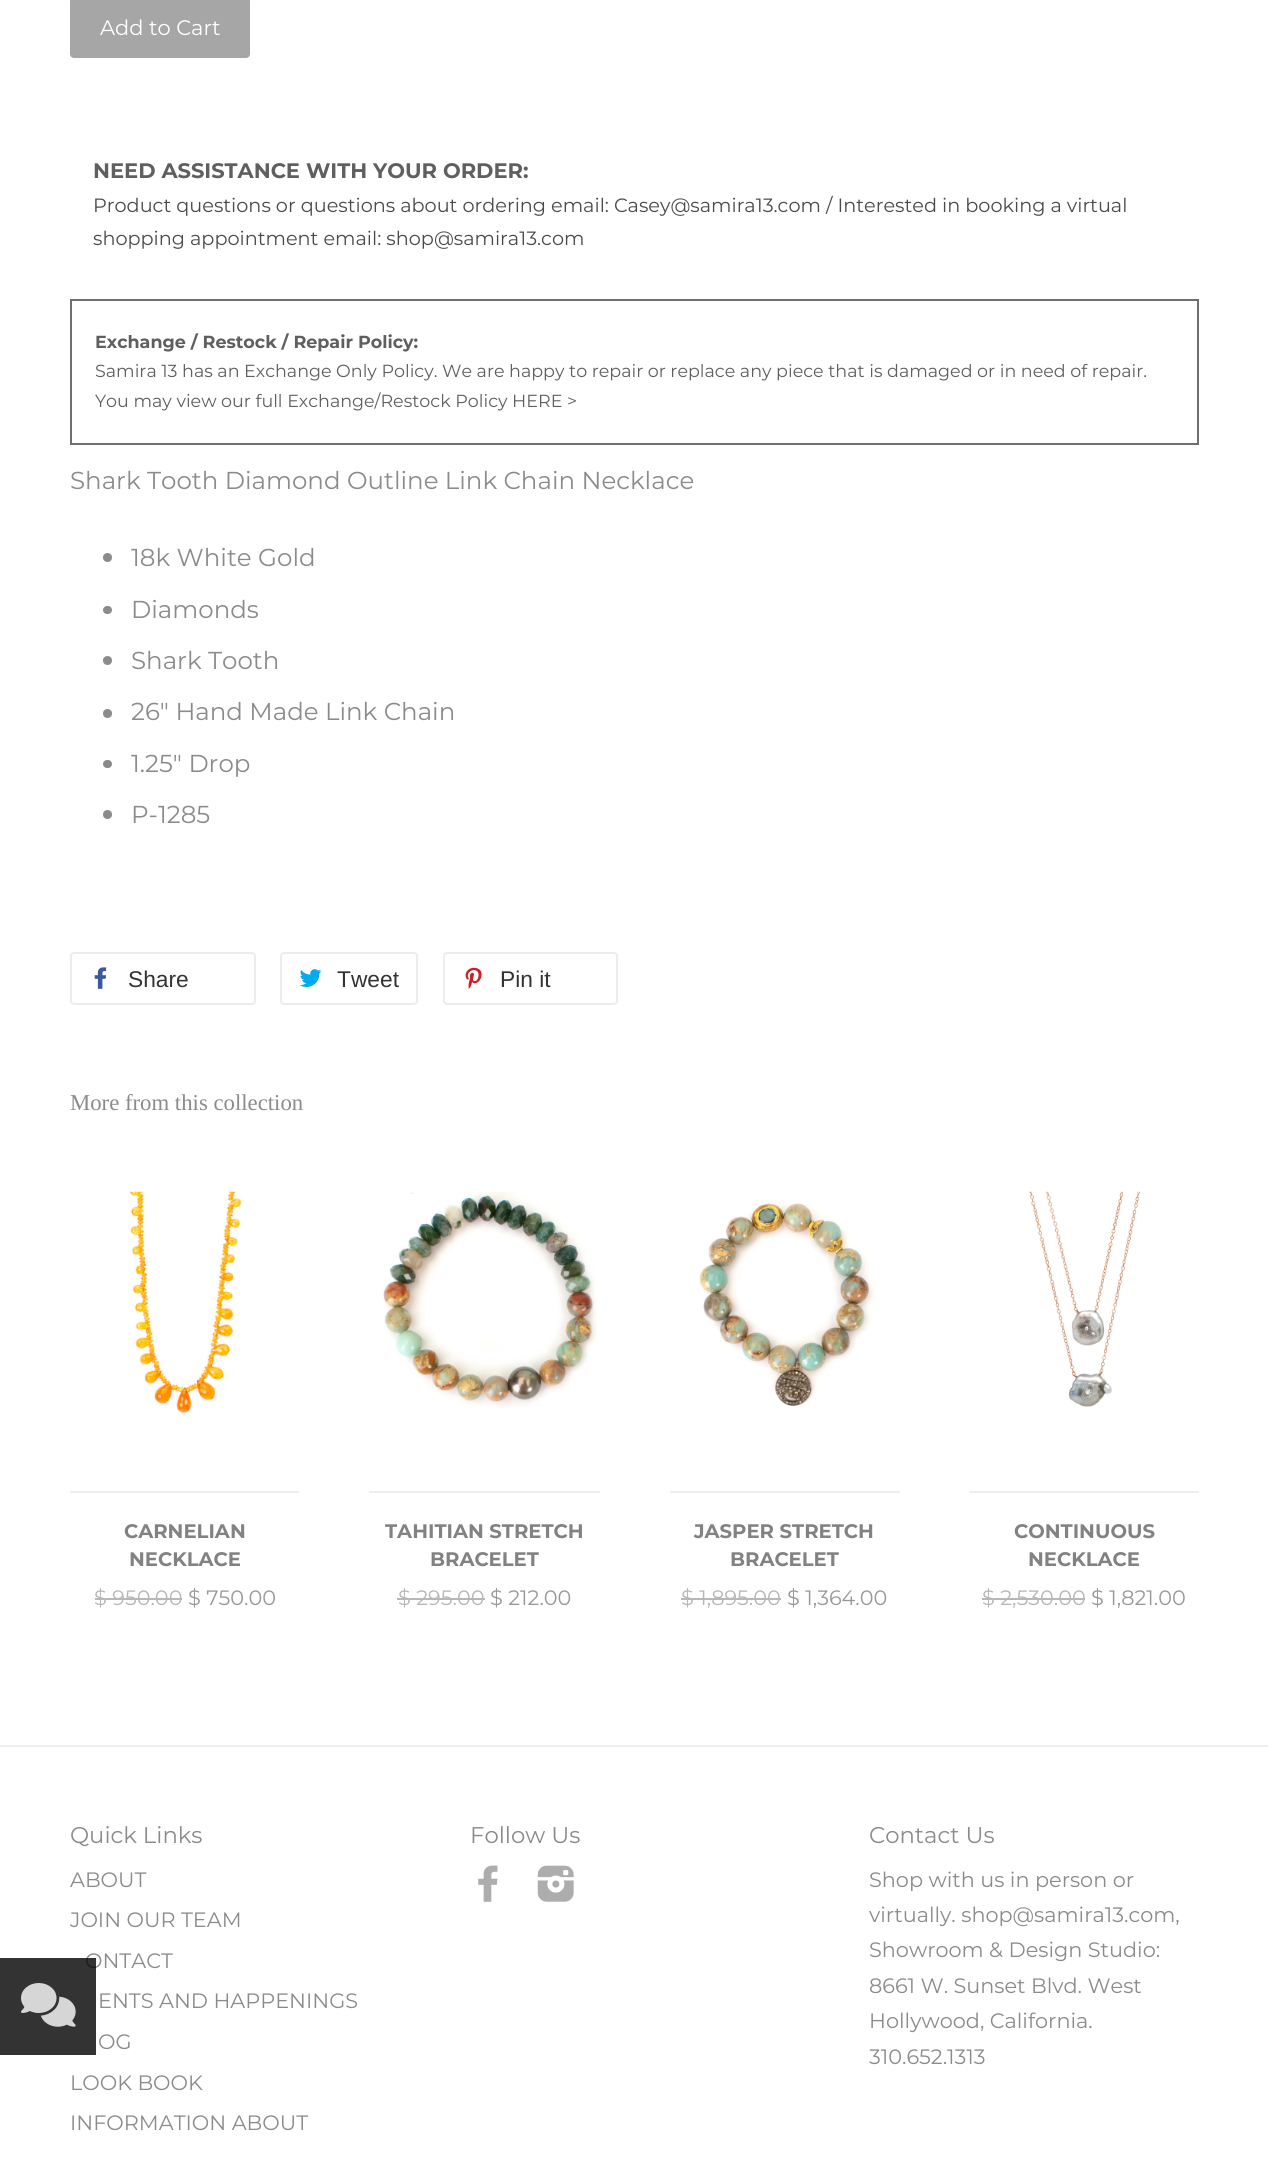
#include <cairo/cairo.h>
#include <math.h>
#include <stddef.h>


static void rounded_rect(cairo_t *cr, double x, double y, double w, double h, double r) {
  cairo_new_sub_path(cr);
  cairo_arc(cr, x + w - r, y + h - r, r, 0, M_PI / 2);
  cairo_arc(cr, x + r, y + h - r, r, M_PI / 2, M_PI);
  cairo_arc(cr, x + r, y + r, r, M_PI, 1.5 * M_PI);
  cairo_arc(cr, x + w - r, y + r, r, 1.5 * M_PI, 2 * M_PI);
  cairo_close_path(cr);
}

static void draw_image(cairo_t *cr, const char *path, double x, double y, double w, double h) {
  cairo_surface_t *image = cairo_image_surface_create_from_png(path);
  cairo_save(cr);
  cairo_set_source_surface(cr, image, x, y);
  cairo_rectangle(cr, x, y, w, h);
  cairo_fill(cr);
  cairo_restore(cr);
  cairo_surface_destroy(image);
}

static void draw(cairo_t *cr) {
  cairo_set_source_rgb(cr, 1, 1, 1);
  cairo_paint(cr);
  cairo_set_source_rgb(cr, 166 / 255.0, 166 / 255.0, 166 / 255.0);
  rounded_rect(cr, 70, -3, 180, 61, 4);
  cairo_fill(cr);
  cairo_rectangle(cr, 71, 300, 1127, 144);
  cairo_set_source_rgb(cr, 111 / 255.0, 111 / 255.0, 111 / 255.0);
  cairo_stroke(cr);
  cairo_set_source_rgb(cr, 139 / 255.0, 139 / 255.0, 139 / 255.0);
  cairo_arc(cr, 107.5, 557.5, 4.5, 0, 2 * M_PI);
  cairo_fill(cr);
  rounded_rect(cr, 103, 606, 9, 8, 4);
  cairo_fill(cr);
  cairo_arc(cr, 107.5, 660.5, 4.5, 0, 2 * M_PI);
  cairo_fill(cr);
  cairo_arc(cr, 107.5, 713.5, 4.5, 0, 2 * M_PI);
  cairo_fill(cr);
  rounded_rect(cr, 103, 760, 9, 8, 4);
  cairo_fill(cr);
  cairo_arc(cr, 107.5, 814.5, 4.5, 0, 2 * M_PI);
  cairo_fill(cr);
  rounded_rect(cr, 71, 953, 184, 51, 3);
  cairo_set_source_rgb(cr, 236 / 255.0, 236 / 255.0, 236 / 255.0);
  cairo_stroke(cr);
  draw_image(cr, "images/1.png", 94, 967, 13, 22);
  rounded_rect(cr, 281, 953, 136, 51, 3);
  cairo_stroke(cr);
  draw_image(cr, "images/2.png", 299, 969, 23, 18);
  rounded_rect(cr, 444, 953, 173, 51, 3);
  cairo_stroke(cr);
  draw_image(cr, "images/3.png", 465, 967, 17, 22);
  draw_image(cr, "images/4.png", 129, 1191, 113, 223);
  cairo_set_source_rgb(cr, 238 / 255.0, 238 / 255.0, 238 / 255.0);
  cairo_rectangle(cr, 70, 1491, 229, 2);
  cairo_fill(cr);
  cairo_set_source_rgb(cr, 183 / 255.0, 183 / 255.0, 183 / 255.0);
  cairo_rectangle(cr, 95, 1598, 87, 2);
  cairo_fill(cr);
  draw_image(cr, "images/5.png", 383, 1192, 214, 216);
  cairo_set_source_rgb(cr, 238 / 255.0, 238 / 255.0, 238 / 255.0);
  cairo_rectangle(cr, 369, 1491, 231, 2);
  cairo_fill(cr);
  cairo_set_source_rgb(cr, 183 / 255.0, 183 / 255.0, 183 / 255.0);
  cairo_rectangle(cr, 397, 1598, 88, 2);
  cairo_fill(cr);
  draw_image(cr, "images/6.png", 699, 1201, 176, 206);
  cairo_set_source_rgb(cr, 238 / 255.0, 238 / 255.0, 238 / 255.0);
  cairo_rectangle(cr, 670, 1491, 230, 2);
  cairo_fill(cr);
  cairo_set_source_rgb(cr, 183 / 255.0, 183 / 255.0, 183 / 255.0);
  cairo_rectangle(cr, 681, 1598, 100, 2);
  cairo_fill(cr);
  draw_image(cr, "images/7.png", 1028, 1191, 113, 216);
  cairo_set_source_rgb(cr, 238 / 255.0, 238 / 255.0, 238 / 255.0);
  cairo_rectangle(cr, 970, 1491, 229, 2);
  cairo_fill(cr);
  cairo_set_source_rgb(cr, 183 / 255.0, 183 / 255.0, 183 / 255.0);
  cairo_rectangle(cr, 982, 1598, 103, 2);
  cairo_fill(cr);
  cairo_set_source_rgb(cr, 238 / 255.0, 238 / 255.0, 238 / 255.0);
  cairo_rectangle(cr, 0, 1745, 1268, 2);
  cairo_fill(cr);
  draw_image(cr, "images/9.png", 478, 1865, 20, 37);
  draw_image(cr, "images/10.png", 537, 1865, 37, 37);
  cairo_select_font_face(cr, "Montserrat", CAIRO_FONT_SLANT_NORMAL, CAIRO_FONT_WEIGHT_NORMAL);
  cairo_set_font_size(cr, 21);
  cairo_set_source_rgb(cr, 1, 1, 1);
  cairo_move_to(cr, 100, 35);
  cairo_show_text(cr, "Add to Cart");
  cairo_select_font_face(cr, "Montserrat", CAIRO_FONT_SLANT_NORMAL, CAIRO_FONT_WEIGHT_BOLD);
  cairo_set_source_rgb(cr, 95 / 255.0, 95 / 255.0, 95 / 255.0);
  cairo_move_to(cr, 93, 178);
  cairo_show_text(cr, "NEED ASSISTANCE WITH YOUR ORDER:");
  cairo_select_font_face(cr, "Montserrat", CAIRO_FONT_SLANT_NORMAL, CAIRO_FONT_WEIGHT_NORMAL);
  cairo_set_font_size(cr, 19.25);
  cairo_set_source_rgb(cr, 74 / 255.0, 74 / 255.0, 74 / 255.0);
  cairo_move_to(cr, 93, 212);
  cairo_show_text(cr, "Product questions or questions about ordering email: Casey@samira13.com / Interested in booking a virtual");
  cairo_move_to(cr, 93, 245);
  cairo_show_text(cr, "shopping appointment email: shop@samira13.com");
  cairo_select_font_face(cr, "Montserrat", CAIRO_FONT_SLANT_NORMAL, CAIRO_FONT_WEIGHT_BOLD);
  cairo_set_font_size(cr, 17.5);
  cairo_set_source_rgb(cr, 95 / 255.0, 95 / 255.0, 95 / 255.0);
  cairo_move_to(cr, 95, 348);
  cairo_show_text(cr, "Exchange / Restock / Repair Policy:");
  cairo_select_font_face(cr, "Montserrat", CAIRO_FONT_SLANT_NORMAL, CAIRO_FONT_WEIGHT_NORMAL);
  cairo_move_to(cr, 95, 377);
  cairo_show_text(cr, "Samira 13 has an Exchange Only Policy. We are happy to repair or replace any piece that is damaged or in need of repair.");
  cairo_move_to(cr, 95, 407);
  cairo_show_text(cr, "You may view our full Exchange/Restock Policy HERE >");
  cairo_set_font_size(cr, 24.5);
  cairo_set_source_rgb(cr, 139 / 255.0, 139 / 255.0, 139 / 255.0);
  cairo_move_to(cr, 70, 489);
  cairo_show_text(cr, "Shark Tooth Diamond Outline Link Chain Necklace");
  cairo_move_to(cr, 131, 566);
  cairo_show_text(cr, "18k White Gold");
  cairo_move_to(cr, 131, 618);
  cairo_show_text(cr, "Diamonds");
  cairo_move_to(cr, 131, 669);
  cairo_show_text(cr, "Shark Tooth");
  cairo_move_to(cr, 131, 720);
  cairo_show_text(cr, "26\" Hand Made Link Chain");
  cairo_move_to(cr, 131, 772);
  cairo_show_text(cr, "1.25\" Drop");
  cairo_move_to(cr, 131, 823);
  cairo_show_text(cr, "P-1285");
  cairo_select_font_face(cr, "Liberation Sans", CAIRO_FONT_SLANT_NORMAL, CAIRO_FONT_WEIGHT_NORMAL);
  cairo_set_font_size(cr, 22.75);
  cairo_set_source_rgb(cr, 51 / 255.0, 51 / 255.0, 51 / 255.0);
  cairo_move_to(cr, 128, 987);
  cairo_show_text(cr, "Share");
  cairo_move_to(cr, 337, 987);
  cairo_show_text(cr, "Tweet");
  cairo_move_to(cr, 500, 987);
  cairo_show_text(cr, "Pin it");
  cairo_select_font_face(cr, "Liberation Serif", CAIRO_FONT_SLANT_NORMAL, CAIRO_FONT_WEIGHT_NORMAL);
  cairo_set_source_rgb(cr, 139 / 255.0, 139 / 255.0, 139 / 255.0);
  cairo_move_to(cr, 70, 1110);
  cairo_show_text(cr, "More from this collection");
  cairo_select_font_face(cr, "Montserrat", CAIRO_FONT_SLANT_NORMAL, CAIRO_FONT_WEIGHT_BOLD);
  cairo_set_font_size(cr, 19.6);
  cairo_set_source_rgb(cr, 130 / 255.0, 130 / 255.0, 130 / 255.0);
  cairo_move_to(cr, 124, 1538);
  cairo_show_text(cr, "CARNELIAN");
  cairo_move_to(cr, 129, 1566);
  cairo_show_text(cr, "NECKLACE");
  cairo_select_font_face(cr, "Montserrat", CAIRO_FONT_SLANT_NORMAL, CAIRO_FONT_WEIGHT_NORMAL);
  cairo_set_font_size(cr, 20.8);
  cairo_set_source_rgb(cr, 183 / 255.0, 183 / 255.0, 183 / 255.0);
  cairo_move_to(cr, 94, 1605);
  cairo_show_text(cr, "$ 950.00");
  cairo_set_source_rgb(cr, 152 / 255.0, 152 / 255.0, 152 / 255.0);
  cairo_move_to(cr, 188, 1605);
  cairo_show_text(cr, "$ 750.00");
  cairo_select_font_face(cr, "Montserrat", CAIRO_FONT_SLANT_NORMAL, CAIRO_FONT_WEIGHT_BOLD);
  cairo_set_font_size(cr, 19.6);
  cairo_set_source_rgb(cr, 130 / 255.0, 130 / 255.0, 130 / 255.0);
  cairo_move_to(cr, 385, 1538);
  cairo_show_text(cr, "TAHITIAN STRETCH");
  cairo_move_to(cr, 430, 1566);
  cairo_show_text(cr, "BRACELET");
  cairo_select_font_face(cr, "Montserrat", CAIRO_FONT_SLANT_NORMAL, CAIRO_FONT_WEIGHT_NORMAL);
  cairo_set_font_size(cr, 20.8);
  cairo_set_source_rgb(cr, 183 / 255.0, 183 / 255.0, 183 / 255.0);
  cairo_move_to(cr, 398, 1605);
  cairo_show_text(cr, "$ 295.00");
  cairo_set_source_rgb(cr, 152 / 255.0, 152 / 255.0, 152 / 255.0);
  cairo_move_to(cr, 490, 1605);
  cairo_show_text(cr, "$ 212.00");
  cairo_select_font_face(cr, "Montserrat", CAIRO_FONT_SLANT_NORMAL, CAIRO_FONT_WEIGHT_BOLD);
  cairo_set_font_size(cr, 19.6);
  cairo_set_source_rgb(cr, 130 / 255.0, 130 / 255.0, 130 / 255.0);
  cairo_move_to(cr, 694, 1538);
  cairo_show_text(cr, "JASPER STRETCH");
  cairo_move_to(cr, 730, 1566);
  cairo_show_text(cr, "BRACELET");
  cairo_select_font_face(cr, "Montserrat", CAIRO_FONT_SLANT_NORMAL, CAIRO_FONT_WEIGHT_NORMAL);
  cairo_set_font_size(cr, 20.8);
  cairo_set_source_rgb(cr, 183 / 255.0, 183 / 255.0, 183 / 255.0);
  cairo_move_to(cr, 681, 1605);
  cairo_show_text(cr, "$ 1,895.00");
  cairo_set_source_rgb(cr, 152 / 255.0, 152 / 255.0, 152 / 255.0);
  cairo_move_to(cr, 787, 1605);
  cairo_show_text(cr, "$ 1,364.00");
  cairo_select_font_face(cr, "Montserrat", CAIRO_FONT_SLANT_NORMAL, CAIRO_FONT_WEIGHT_BOLD);
  cairo_set_font_size(cr, 19.6);
  cairo_set_source_rgb(cr, 130 / 255.0, 130 / 255.0, 130 / 255.0);
  cairo_move_to(cr, 1014, 1538);
  cairo_show_text(cr, "CONTINUOUS");
  cairo_move_to(cr, 1028, 1566);
  cairo_show_text(cr, "NECKLACE");
  cairo_select_font_face(cr, "Montserrat", CAIRO_FONT_SLANT_NORMAL, CAIRO_FONT_WEIGHT_NORMAL);
  cairo_set_font_size(cr, 20.8);
  cairo_set_source_rgb(cr, 183 / 255.0, 183 / 255.0, 183 / 255.0);
  cairo_move_to(cr, 982, 1605);
  cairo_show_text(cr, "$ 2,530.00");
  cairo_set_source_rgb(cr, 152 / 255.0, 152 / 255.0, 152 / 255.0);
  cairo_move_to(cr, 1091, 1605);
  cairo_show_text(cr, "$ 1,821.00");
  cairo_set_font_size(cr, 22.75);
  cairo_set_source_rgb(cr, 139 / 255.0, 139 / 255.0, 139 / 255.0);
  cairo_move_to(cr, 70, 1843);
  cairo_show_text(cr, "Quick Links");
  cairo_set_font_size(cr, 20.8);
  cairo_move_to(cr, 70, 1887);
  cairo_show_text(cr, "ABOUT");
  cairo_move_to(cr, 70, 1927);
  cairo_show_text(cr, "JOIN OUR TEAM");
  cairo_move_to(cr, 85, 1968);
  cairo_show_text(cr, "ONTACT");
  cairo_set_source_rgba(cr, 0, 0, 0, 0.8);
  cairo_rectangle(cr, 0, 1958, 96, 97);
  cairo_fill(cr);
  draw_image(cr, "images/8.png", 21, 1983, 55, 44);
  cairo_set_source_rgb(cr, 139 / 255.0, 139 / 255.0, 139 / 255.0);
  cairo_move_to(cr, 98, 2008);
  cairo_show_text(cr, "ENTS AND HAPPENINGS");
  cairo_move_to(cr, 98, 2049);
  cairo_show_text(cr, "OG");
  cairo_move_to(cr, 70, 2090);
  cairo_show_text(cr, "LOOK BOOK");
  cairo_move_to(cr, 70, 2130);
  cairo_show_text(cr, "INFORMATION ABOUT");
  cairo_set_font_size(cr, 22.75);
  cairo_move_to(cr, 470, 1843);
  cairo_show_text(cr, "Follow Us");
  cairo_move_to(cr, 869, 1843);
  cairo_show_text(cr, "Contact Us");
  cairo_set_font_size(cr, 20.8);
  cairo_move_to(cr, 869, 1887);
  cairo_show_text(cr, "Shop with us in person or");
  cairo_move_to(cr, 869, 1922);
  cairo_show_text(cr, "virtually. shop@samira13.com,");
  cairo_move_to(cr, 869, 1957);
  cairo_show_text(cr, "Showroom & Design Studio:");
  cairo_move_to(cr, 869, 1993);
  cairo_show_text(cr, "8661 W. Sunset Blvd. West");
  cairo_move_to(cr, 869, 2028);
  cairo_show_text(cr, "Hollywood, California.");
  cairo_move_to(cr, 869, 2064);
  cairo_show_text(cr, "310.652.1313");
}

int main(void) {
  cairo_surface_t *surface = cairo_image_surface_create(CAIRO_FORMAT_RGB24, 1268, 2158);
  cairo_t *cr = cairo_create(surface);
  cairo_font_options_t *options = cairo_font_options_create();
  cairo_font_options_set_hint_metrics(options, CAIRO_HINT_METRICS_OFF);
  cairo_font_options_set_hint_style(options, CAIRO_HINT_STYLE_NONE);
  cairo_set_font_options(cr, options);
  cairo_set_miter_limit(cr, 4);
  draw(cr);
  cairo_surface_write_to_png(surface, "out.png");
  cairo_font_options_destroy(options);
  cairo_destroy(cr);
  cairo_surface_destroy(surface);
  return 0;
}
